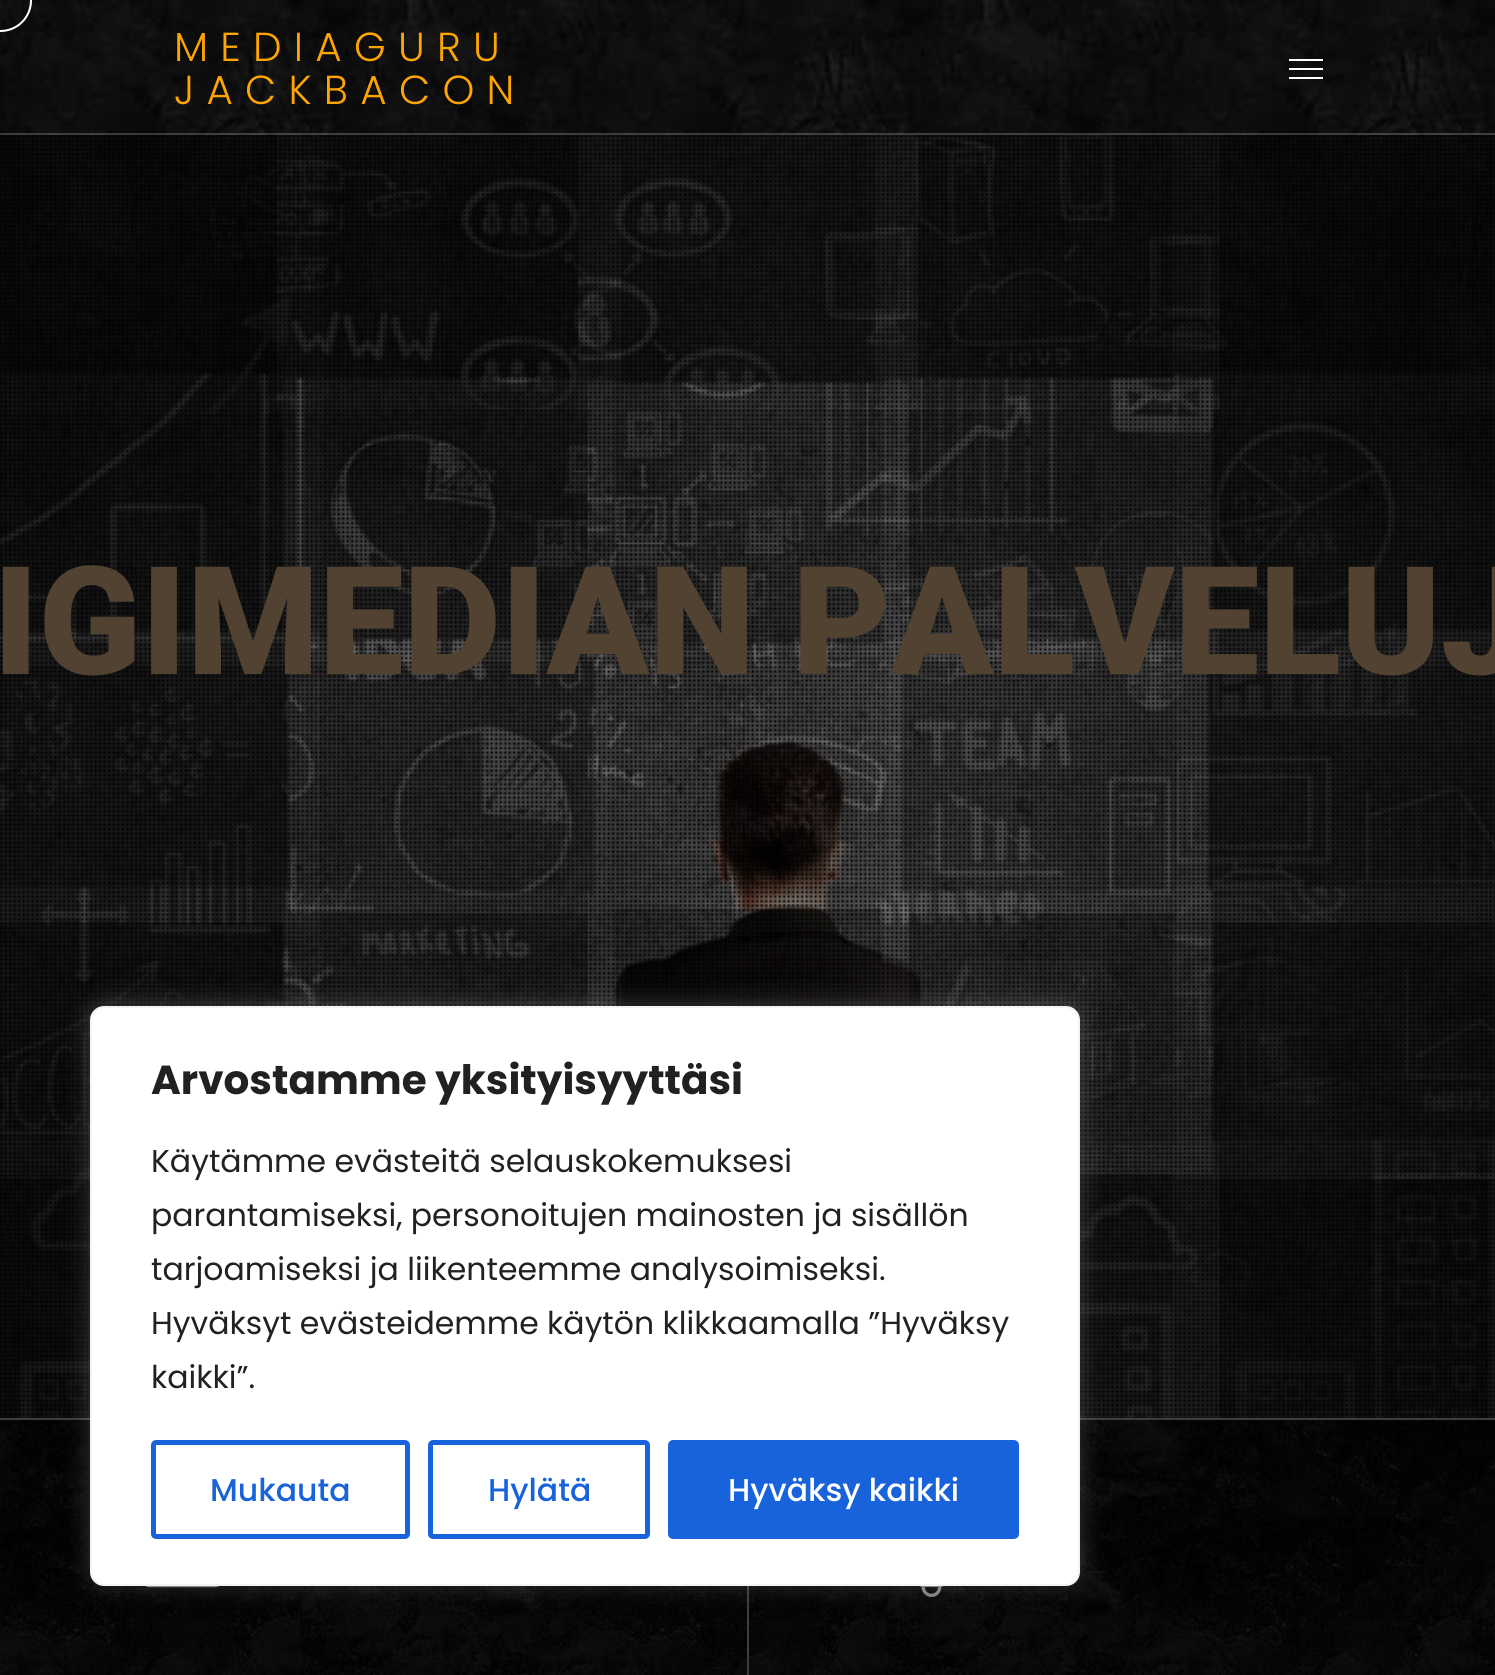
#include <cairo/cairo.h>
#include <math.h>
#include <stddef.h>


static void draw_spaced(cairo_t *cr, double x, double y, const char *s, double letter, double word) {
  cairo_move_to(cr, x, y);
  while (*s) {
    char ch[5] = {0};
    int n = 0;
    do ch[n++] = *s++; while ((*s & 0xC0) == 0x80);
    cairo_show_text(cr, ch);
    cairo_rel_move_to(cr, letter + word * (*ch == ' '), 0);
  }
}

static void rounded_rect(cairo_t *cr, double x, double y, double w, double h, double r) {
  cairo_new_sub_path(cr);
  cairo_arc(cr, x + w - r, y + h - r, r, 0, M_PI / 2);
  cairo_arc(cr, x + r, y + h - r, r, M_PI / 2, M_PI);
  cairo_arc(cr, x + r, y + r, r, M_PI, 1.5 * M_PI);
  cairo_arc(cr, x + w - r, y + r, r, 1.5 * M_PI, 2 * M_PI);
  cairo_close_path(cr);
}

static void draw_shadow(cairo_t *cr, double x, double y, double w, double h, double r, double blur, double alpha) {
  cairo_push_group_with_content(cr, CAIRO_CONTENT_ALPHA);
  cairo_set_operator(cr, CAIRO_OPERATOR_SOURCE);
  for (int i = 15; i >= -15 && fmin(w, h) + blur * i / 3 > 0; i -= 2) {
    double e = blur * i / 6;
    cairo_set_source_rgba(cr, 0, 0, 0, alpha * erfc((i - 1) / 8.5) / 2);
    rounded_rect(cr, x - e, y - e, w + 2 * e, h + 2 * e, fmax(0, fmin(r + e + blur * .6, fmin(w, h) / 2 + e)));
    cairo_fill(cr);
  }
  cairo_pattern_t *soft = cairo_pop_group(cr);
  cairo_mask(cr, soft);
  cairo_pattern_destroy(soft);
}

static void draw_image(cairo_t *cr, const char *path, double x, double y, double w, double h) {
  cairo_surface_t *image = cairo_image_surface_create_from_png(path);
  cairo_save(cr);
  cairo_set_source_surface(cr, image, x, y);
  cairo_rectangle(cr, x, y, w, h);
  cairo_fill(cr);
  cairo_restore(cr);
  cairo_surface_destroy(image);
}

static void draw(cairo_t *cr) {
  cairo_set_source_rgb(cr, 1, 1, 1);
  cairo_paint(cr);
  draw_image(cr, "images/1.png", 0, 0, 1495, 1418);
  cairo_arc(cr, 0.5, 0.5, 30.5, 0, 2 * M_PI);
  cairo_set_source_rgb(cr, 1, 1, 1);
  cairo_stroke(cr);
  cairo_rectangle(cr, 1289, 59, 34, 2);
  cairo_fill(cr);
  cairo_rectangle(cr, 1289, 68, 34, 2);
  cairo_fill(cr);
  cairo_rectangle(cr, 1289, 77, 34, 2);
  cairo_fill(cr);
  cairo_set_source_rgba(cr, 1, 1, 1, 0.2);
  cairo_rectangle(cr, 0, 133, 1495, 2);
  cairo_fill(cr);
  draw_image(cr, "images/2.png", 0, 135, 1495, 1283);
  draw_image(cr, "images/3.png", 0, 135, 1495, 1283);
  cairo_set_source_rgba(cr, 0, 0, 0, 0.5);
  cairo_rectangle(cr, 0, 135, 1495, 1283);
  cairo_fill(cr);
  draw_image(cr, "images/6.png", 0, 1420, 1495, 255);
  cairo_set_source_rgba(cr, 0, 0, 0, 0.3);
  cairo_rectangle(cr, -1, 1419, 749, 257);
  cairo_fill_preserve(cr);
  cairo_set_source_rgb(cr, 61 / 255.0, 61 / 255.0, 61 / 255.0);
  cairo_stroke(cr);
  draw_image(cr, "images/4.png", 145, 1586, 74, 2);
  cairo_set_source_rgba(cr, 0, 0, 0, 0.3);
  cairo_rectangle(cr, 748, 1419, 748, 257);
  cairo_fill_preserve(cr);
  cairo_set_source_rgb(cr, 61 / 255.0, 61 / 255.0, 61 / 255.0);
  cairo_stroke(cr);
  draw_image(cr, "images/5.png", 919, 1586, 25, 11);
  cairo_set_source_rgb(cr, 172 / 255.0, 171 / 255.0, 171 / 255.0);
  draw_shadow(cr, 90, 1004, 990, 580, 14, 11, 0.3);
  cairo_set_source_rgb(cr, 1, 1, 1);
  rounded_rect(cr, 91, 1007, 988, 578, 13);
  cairo_fill_preserve(cr);
  cairo_set_source_rgb(cr, 244 / 255.0, 244 / 255.0, 244 / 255.0);
  cairo_stroke(cr);
  rounded_rect(cr, 153.5, 1442.5, 254, 94, 2.5);
  cairo_set_source_rgb(cr, 24 / 255.0, 99 / 255.0, 220 / 255.0);
  cairo_set_line_width(cr, 5);
  cairo_stroke(cr);
  rounded_rect(cr, 430.5, 1442.5, 217, 94, 2.5);
  cairo_stroke(cr);
  rounded_rect(cr, 670.5, 1442.5, 346, 94, 2.5);
  cairo_fill_preserve(cr);
  cairo_stroke(cr);
  cairo_select_font_face(cr, "Poppins Light", CAIRO_FONT_SLANT_NORMAL, CAIRO_FONT_WEIGHT_NORMAL);
  cairo_set_font_size(cr, 40.5);
  cairo_set_source_rgb(cr, 1, 165 / 255.0, 0);
  draw_spaced(cr, 174, 61, "MEDIAGURU", 12.25, 0);
  draw_spaced(cr, 174, 104, "JACKBACON", 12.25, 0);
  cairo_select_font_face(cr, "Roboto Black", CAIRO_FONT_SLANT_NORMAL, CAIRO_FONT_WEIGHT_NORMAL);
  cairo_set_font_size(cr, 150.75);
  cairo_set_source_rgb(cr, 81 / 255.0, 66 / 255.0, 49 / 255.0);
  cairo_move_to(cr, -7, 674);
  cairo_show_text(cr, "IGIMEDIAN PALVELUJ");
  cairo_select_font_face(cr, "Poppins", CAIRO_FONT_SLANT_NORMAL, CAIRO_FONT_WEIGHT_BOLD);
  cairo_set_font_size(cr, 40.5);
  cairo_set_source_rgb(cr, 33 / 255.0, 33 / 255.0, 33 / 255.0);
  cairo_move_to(cr, 151, 1094);
  cairo_show_text(cr, "Arvostamme yksityisyyttäsi");
  cairo_select_font_face(cr, "Poppins", CAIRO_FONT_SLANT_NORMAL, CAIRO_FONT_WEIGHT_NORMAL);
  cairo_set_font_size(cr, 31.5);
  cairo_move_to(cr, 151, 1172);
  cairo_show_text(cr, "Käytämme evästeitä selauskokemuksesi");
  cairo_move_to(cr, 151, 1226);
  cairo_show_text(cr, "parantamiseksi, personoitujen mainosten ja sisällön");
  cairo_move_to(cr, 151, 1280);
  cairo_show_text(cr, "tarjoamiseksi ja liikenteemme analysoimiseksi.");
  cairo_move_to(cr, 151, 1334);
  cairo_show_text(cr, "Hyväksyt evästeidemme käytön klikkaamalla ”Hyväksy");
  cairo_move_to(cr, 151, 1388);
  cairo_show_text(cr, "kaikki”.");
  cairo_select_font_face(cr, "Poppins Medium", CAIRO_FONT_SLANT_NORMAL, CAIRO_FONT_WEIGHT_NORMAL);
  cairo_set_source_rgb(cr, 24 / 255.0, 99 / 255.0, 220 / 255.0);
  cairo_move_to(cr, 210, 1501);
  cairo_show_text(cr, "Mukauta");
  cairo_move_to(cr, 488, 1501);
  cairo_show_text(cr, "Hylätä");
  cairo_set_source_rgb(cr, 1, 1, 1);
  cairo_move_to(cr, 728, 1501);
  cairo_show_text(cr, "Hyväksy kaikki");
}

int main(void) {
  cairo_surface_t *surface = cairo_image_surface_create(CAIRO_FORMAT_RGB24, 1495, 1675);
  cairo_t *cr = cairo_create(surface);
  cairo_font_options_t *options = cairo_font_options_create();
  cairo_font_options_set_hint_metrics(options, CAIRO_HINT_METRICS_OFF);
  cairo_font_options_set_hint_style(options, CAIRO_HINT_STYLE_NONE);
  cairo_set_font_options(cr, options);
  cairo_set_miter_limit(cr, 4);
  draw(cr);
  cairo_surface_write_to_png(surface, "out.png");
  cairo_font_options_destroy(options);
  cairo_destroy(cr);
  cairo_surface_destroy(surface);
  return 0;
}
